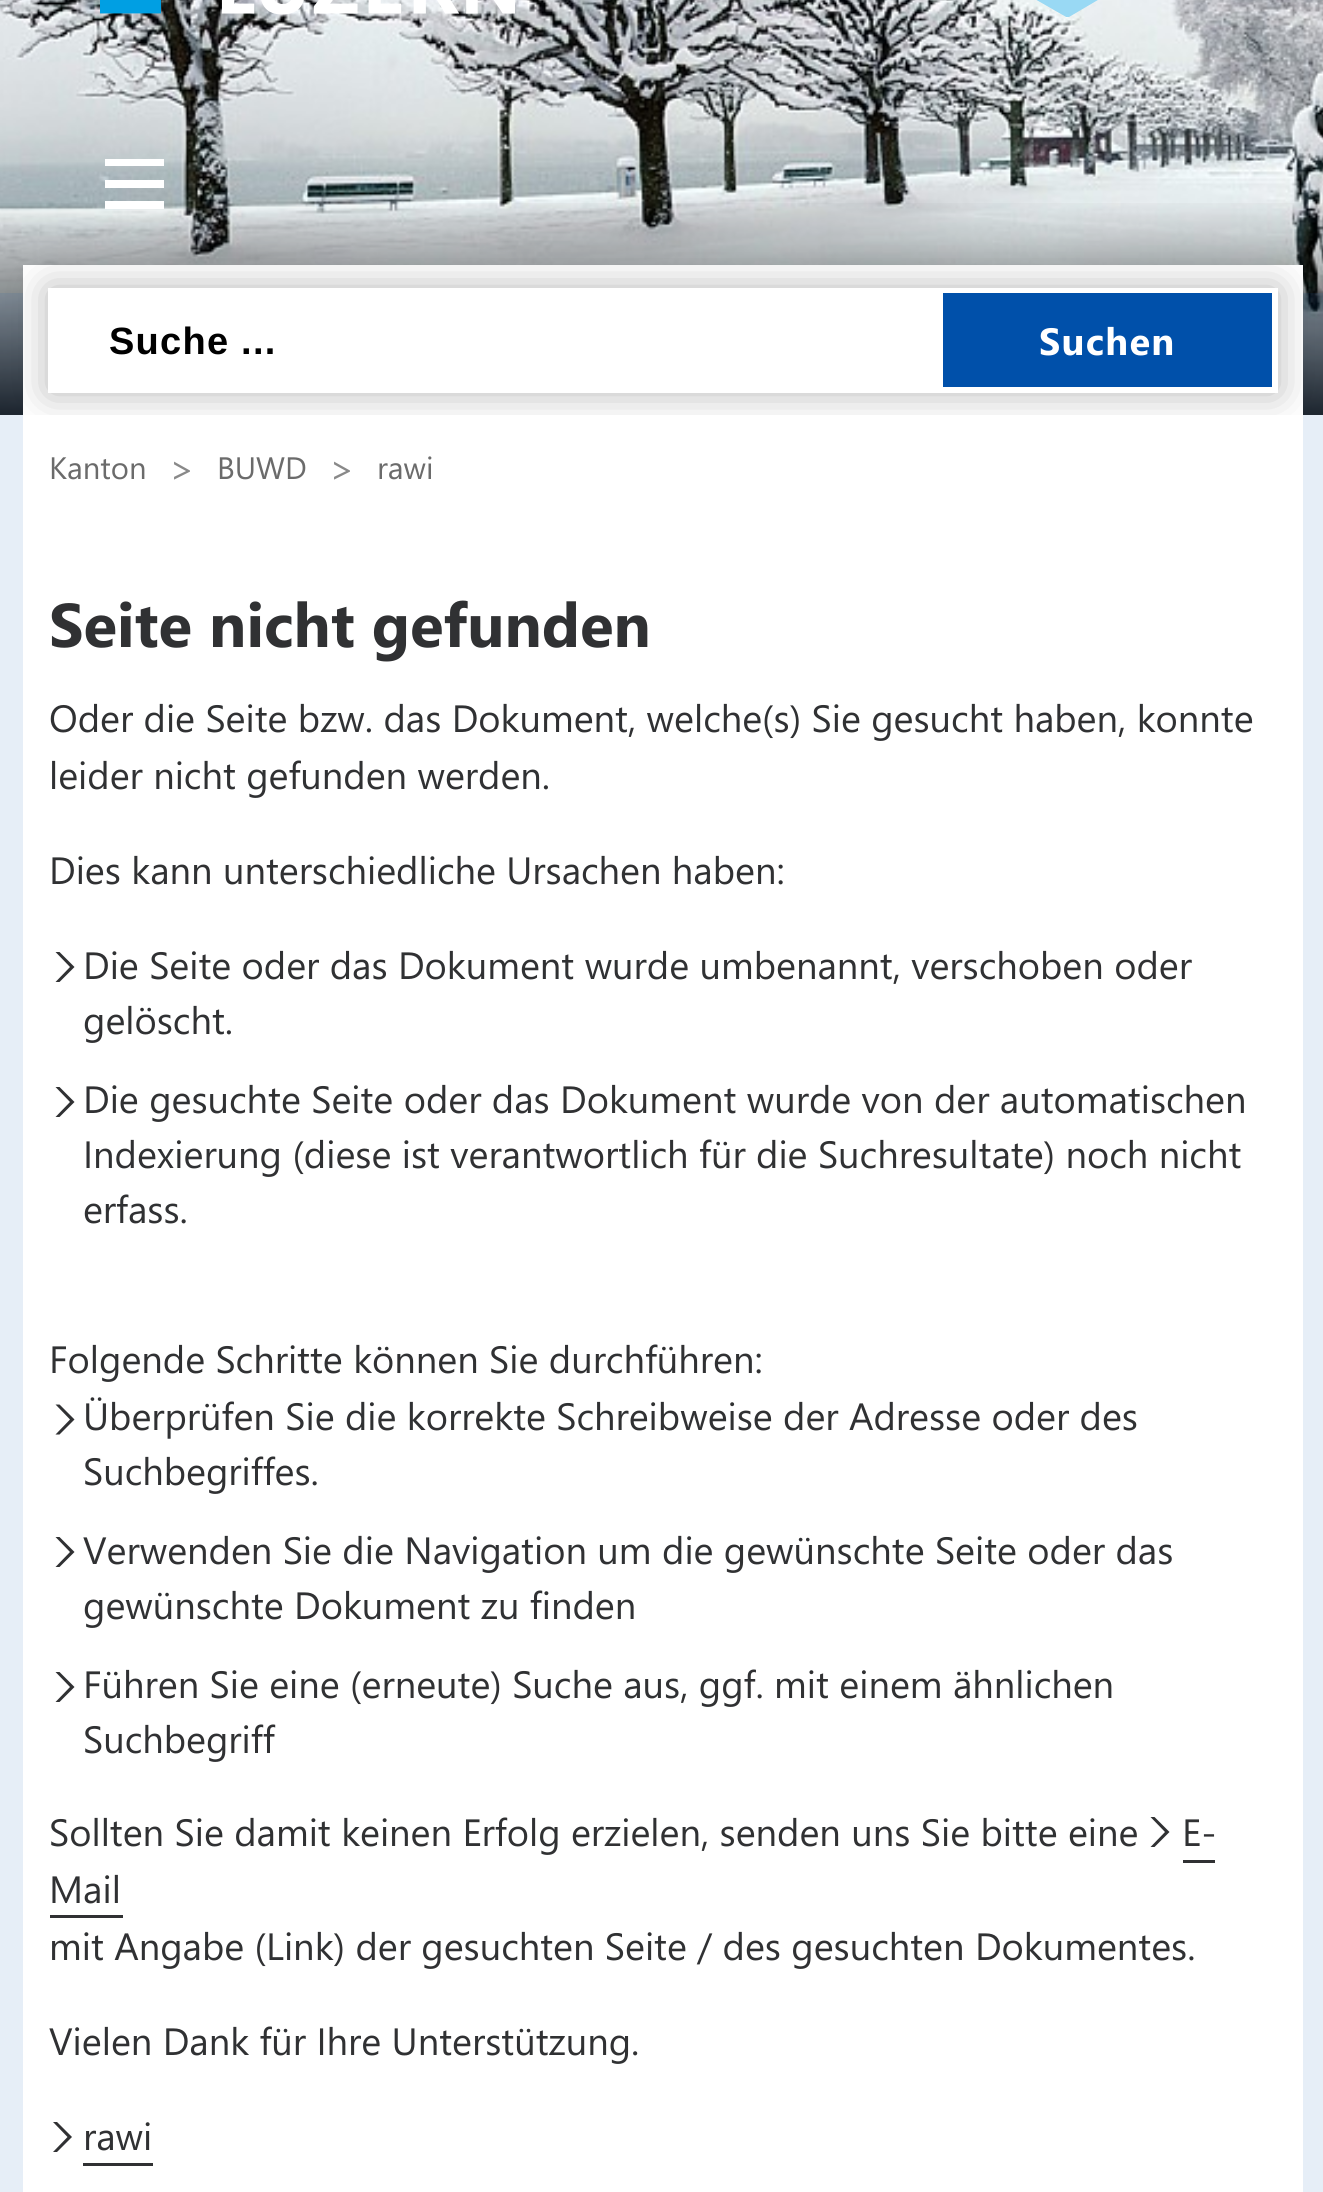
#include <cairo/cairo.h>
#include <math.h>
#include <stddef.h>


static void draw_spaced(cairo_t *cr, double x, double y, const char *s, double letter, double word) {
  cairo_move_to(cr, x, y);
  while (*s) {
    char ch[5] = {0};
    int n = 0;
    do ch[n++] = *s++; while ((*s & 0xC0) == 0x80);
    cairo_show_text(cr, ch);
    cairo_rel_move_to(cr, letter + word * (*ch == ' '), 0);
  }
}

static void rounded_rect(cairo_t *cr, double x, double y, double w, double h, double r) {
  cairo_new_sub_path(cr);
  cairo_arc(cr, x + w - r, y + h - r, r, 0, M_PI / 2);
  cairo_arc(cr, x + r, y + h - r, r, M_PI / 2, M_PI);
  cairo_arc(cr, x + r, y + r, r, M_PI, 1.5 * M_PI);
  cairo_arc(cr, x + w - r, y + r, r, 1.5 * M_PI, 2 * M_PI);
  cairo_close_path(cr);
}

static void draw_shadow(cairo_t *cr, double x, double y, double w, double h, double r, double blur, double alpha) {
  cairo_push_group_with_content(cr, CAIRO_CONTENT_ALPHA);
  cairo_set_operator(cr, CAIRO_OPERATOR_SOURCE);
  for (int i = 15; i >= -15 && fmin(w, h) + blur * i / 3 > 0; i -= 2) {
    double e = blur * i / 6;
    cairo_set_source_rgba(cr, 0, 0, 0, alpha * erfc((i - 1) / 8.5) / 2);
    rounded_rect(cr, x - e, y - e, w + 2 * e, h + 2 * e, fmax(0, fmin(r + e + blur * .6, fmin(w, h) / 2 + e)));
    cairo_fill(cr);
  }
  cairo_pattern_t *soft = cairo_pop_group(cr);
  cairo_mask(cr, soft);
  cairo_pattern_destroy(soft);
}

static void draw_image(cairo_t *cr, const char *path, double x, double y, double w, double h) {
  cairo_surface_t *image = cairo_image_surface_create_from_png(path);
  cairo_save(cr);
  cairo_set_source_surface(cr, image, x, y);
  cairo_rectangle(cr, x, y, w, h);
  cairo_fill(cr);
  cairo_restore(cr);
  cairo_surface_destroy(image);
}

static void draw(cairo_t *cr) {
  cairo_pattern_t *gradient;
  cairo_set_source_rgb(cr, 1, 1, 1);
  cairo_paint(cr);
  draw_image(cr, "images/1.png", 0, 0, 1323, 415);
  draw_image(cr, "images/2.png", 100, 0, 415, 15);
  draw_image(cr, "images/3.png", 1036, 0, 62, 17);
  gradient = cairo_pattern_create_linear(663, 415, 663, -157);
  cairo_pattern_add_color_stop_rgba(gradient, 0, 0, 0, 0, 0.85);
  cairo_pattern_add_color_stop_rgba(gradient, 0.38, 0, 0, 0, 0);
  cairo_set_source(cr, gradient);
  cairo_pattern_destroy(gradient);
  cairo_rectangle(cr, 0, 203, 1323, 212);
  cairo_fill(cr);
  cairo_set_source_rgb(cr, 1, 1, 1);
  cairo_new_path(cr);
  cairo_move_to(cr, 105, 159);
  cairo_line_to(cr, 105, 166);
  cairo_line_to(cr, 164, 166);
  cairo_line_to(cr, 164, 159);
  cairo_close_path(cr);
  cairo_move_to(cr, 105, 180);
  cairo_line_to(cr, 105, 188);
  cairo_line_to(cr, 164, 188);
  cairo_line_to(cr, 164, 180);
  cairo_close_path(cr);
  cairo_move_to(cr, 105, 201);
  cairo_line_to(cr, 105, 209);
  cairo_line_to(cr, 164, 209);
  cairo_line_to(cr, 164, 201);
  cairo_close_path(cr);
  cairo_fill(cr);
  cairo_rectangle(cr, 23, 265, 1280, 150);
  cairo_fill(cr);
  cairo_save(cr);
  cairo_rectangle(cr, 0, 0, 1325, 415);
  cairo_clip(cr);
  cairo_set_source_rgb(cr, 0, 0, 0);
  draw_shadow(cr, 48, 288, 1230, 105, 0, 20, 0.29);
  cairo_restore(cr);
  cairo_rectangle(cr, 48, 288, 1230, 105);
  cairo_fill(cr);
  cairo_set_source_rgb(cr, 0, 80 / 255.0, 170 / 255.0);
  cairo_rectangle(cr, 943, 293, 329, 94);
  cairo_fill(cr);
  cairo_set_source_rgba(cr, 0, 80 / 255.0, 170 / 255.0, 0.1);
  cairo_rectangle(cr, 0, 293, 23, 1899);
  cairo_fill(cr);
  cairo_rectangle(cr, 1303, 293, 20, 1899);
  cairo_fill(cr);
  cairo_set_source_rgb(cr, 48 / 255.0, 49 / 255.0, 51 / 255.0);
  cairo_new_path(cr);
  cairo_move_to(cr, 70, 967);
  cairo_line_to(cr, 55.5, 982);
  cairo_line_to(cr, 59.5, 982);
  cairo_line_to(cr, 74.5, 967);
  cairo_line_to(cr, 59.5, 952);
  cairo_line_to(cr, 55.5, 952);
  cairo_close_path(cr);
  cairo_fill(cr);
  cairo_new_path(cr);
  cairo_move_to(cr, 70, 1102);
  cairo_line_to(cr, 55.5, 1117);
  cairo_line_to(cr, 59.5, 1117);
  cairo_line_to(cr, 74.5, 1102);
  cairo_line_to(cr, 59.5, 1087);
  cairo_line_to(cr, 55.5, 1087);
  cairo_close_path(cr);
  cairo_fill(cr);
  cairo_new_path(cr);
  cairo_move_to(cr, 70, 1419.5);
  cairo_line_to(cr, 55.5, 1434.5);
  cairo_line_to(cr, 59.5, 1434.5);
  cairo_line_to(cr, 74.5, 1419.5);
  cairo_line_to(cr, 59.5, 1404.5);
  cairo_line_to(cr, 55.5, 1404.5);
  cairo_close_path(cr);
  cairo_fill(cr);
  cairo_new_path(cr);
  cairo_move_to(cr, 70, 1552);
  cairo_line_to(cr, 55.5, 1567);
  cairo_line_to(cr, 59.5, 1567);
  cairo_line_to(cr, 74.5, 1552);
  cairo_line_to(cr, 59.5, 1537);
  cairo_line_to(cr, 55.5, 1537);
  cairo_close_path(cr);
  cairo_fill(cr);
  cairo_new_path(cr);
  cairo_move_to(cr, 70, 1687);
  cairo_line_to(cr, 55.5, 1702);
  cairo_line_to(cr, 59.5, 1702);
  cairo_line_to(cr, 74.5, 1687);
  cairo_line_to(cr, 59.5, 1672);
  cairo_line_to(cr, 55.5, 1672);
  cairo_close_path(cr);
  cairo_fill(cr);
  cairo_new_path(cr);
  cairo_move_to(cr, 1165, 1832);
  cairo_line_to(cr, 1150.5, 1847);
  cairo_line_to(cr, 1154.5, 1847);
  cairo_line_to(cr, 1169.5, 1832);
  cairo_line_to(cr, 1154.5, 1817);
  cairo_line_to(cr, 1150.5, 1817);
  cairo_close_path(cr);
  cairo_fill(cr);
  cairo_rectangle(cr, 1183, 1860, 32, 3);
  cairo_fill(cr);
  cairo_rectangle(cr, 50, 1915, 73, 3);
  cairo_fill(cr);
  cairo_new_path(cr);
  cairo_move_to(cr, 67.5, 2137);
  cairo_line_to(cr, 53, 2152);
  cairo_line_to(cr, 57, 2152);
  cairo_line_to(cr, 72, 2137);
  cairo_line_to(cr, 57, 2122);
  cairo_line_to(cr, 53, 2122);
  cairo_close_path(cr);
  cairo_fill(cr);
  cairo_rectangle(cr, 83, 2163, 70, 3);
  cairo_fill(cr);
  cairo_select_font_face(cr, "Liberation Sans", CAIRO_FONT_SLANT_NORMAL, CAIRO_FONT_WEIGHT_BOLD);
  cairo_set_font_size(cr, 38);
  cairo_set_source_rgb(cr, 0, 0, 0);
  draw_spaced(cr, 109, 354, "Suche ...", 1.25, 0);
  cairo_select_font_face(cr, "Segoe UI", CAIRO_FONT_SLANT_NORMAL, CAIRO_FONT_WEIGHT_BOLD);
  cairo_set_source_rgb(cr, 1, 1, 1);
  draw_spaced(cr, 1039, 355, "Suchen", 1.25, 0);
  cairo_select_font_face(cr, "Segoe UI", CAIRO_FONT_SLANT_NORMAL, CAIRO_FONT_WEIGHT_NORMAL);
  cairo_set_font_size(cr, 31);
  cairo_set_source_rgb(cr, 107 / 255.0, 107 / 255.0, 107 / 255.0);
  cairo_move_to(cr, 49, 479);
  cairo_show_text(cr, "Kanton");
  cairo_set_font_size(cr, 38);
  cairo_set_source_rgb(cr, 137 / 255.0, 137 / 255.0, 137 / 255.0);
  cairo_move_to(cr, 169, 482);
  cairo_show_text(cr, ">");
  cairo_set_font_size(cr, 31);
  cairo_set_source_rgb(cr, 107 / 255.0, 107 / 255.0, 107 / 255.0);
  cairo_move_to(cr, 217, 479);
  cairo_show_text(cr, "BUWD");
  cairo_set_font_size(cr, 38);
  cairo_set_source_rgb(cr, 137 / 255.0, 137 / 255.0, 137 / 255.0);
  cairo_move_to(cr, 329, 482);
  cairo_show_text(cr, ">");
  cairo_set_font_size(cr, 31);
  cairo_set_source_rgb(cr, 107 / 255.0, 107 / 255.0, 107 / 255.0);
  cairo_move_to(cr, 377, 479);
  cairo_show_text(cr, "rawi");
  cairo_select_font_face(cr, "Segoe UI", CAIRO_FONT_SLANT_NORMAL, CAIRO_FONT_WEIGHT_BOLD);
  cairo_set_font_size(cr, 61.75);
  cairo_set_source_rgb(cr, 48 / 255.0, 49 / 255.0, 51 / 255.0);
  cairo_move_to(cr, 49, 647);
  cairo_show_text(cr, "Seite nicht gefunden");
  cairo_select_font_face(cr, "Segoe UI", CAIRO_FONT_SLANT_NORMAL, CAIRO_FONT_WEIGHT_NORMAL);
  cairo_set_font_size(cr, 38);
  cairo_move_to(cr, 49, 732);
  cairo_show_text(cr, "Oder die Seite bzw. das Dokument, welche(s) Sie gesucht haben, konnte");
  cairo_move_to(cr, 49, 789);
  cairo_show_text(cr, "leider nicht gefunden werden.");
  cairo_move_to(cr, 49, 884);
  cairo_show_text(cr, "Dies kann unterschiedliche Ursachen haben:");
  cairo_move_to(cr, 83, 979);
  cairo_show_text(cr, "Die Seite oder das Dokument wurde umbenannt, verschoben oder");
  cairo_move_to(cr, 83, 1034);
  cairo_show_text(cr, "gelöscht.");
  cairo_move_to(cr, 83, 1113);
  cairo_show_text(cr, "Die gesuchte Seite oder das Dokument wurde von der automatischen");
  cairo_move_to(cr, 83, 1168);
  cairo_show_text(cr, "Indexierung (diese ist verantwortlich für die Suchresultate) noch nicht");
  cairo_move_to(cr, 83, 1223);
  cairo_show_text(cr, "erfass.");
  cairo_move_to(cr, 49, 1373);
  cairo_show_text(cr, "Folgende Schritte können Sie durchführen:");
  cairo_move_to(cr, 83, 1430);
  cairo_show_text(cr, "Überprüfen Sie die korrekte Schreibweise der Adresse oder des");
  cairo_move_to(cr, 83, 1485);
  cairo_show_text(cr, "Suchbegriffes.");
  cairo_move_to(cr, 83, 1564);
  cairo_show_text(cr, "Verwenden Sie die Navigation um die gewünschte Seite oder das");
  cairo_move_to(cr, 83, 1619);
  cairo_show_text(cr, "gewünschte Dokument zu finden");
  cairo_move_to(cr, 83, 1698);
  cairo_show_text(cr, "Führen Sie eine (erneute) Suche aus, ggf. mit einem ähnlichen");
  cairo_move_to(cr, 83, 1753);
  cairo_show_text(cr, "Suchbegriff");
  cairo_move_to(cr, 49, 1846);
  cairo_show_text(cr, "Sollten Sie damit keinen Erfolg erzielen, senden uns Sie bitte eine");
  cairo_move_to(cr, 1182, 1846);
  cairo_show_text(cr, "E-");
  cairo_move_to(cr, 49, 1903);
  cairo_show_text(cr, "Mail");
  cairo_move_to(cr, 49, 1960);
  cairo_show_text(cr, "mit Angabe (Link) der gesuchten Seite / des gesuchten Dokumentes.");
  cairo_move_to(cr, 49, 2055);
  cairo_show_text(cr, "Vielen Dank für Ihre Unterstützung.");
  cairo_move_to(cr, 83, 2150);
  cairo_show_text(cr, "rawi");
}

int main(void) {
  cairo_surface_t *surface = cairo_image_surface_create(CAIRO_FORMAT_RGB24, 1323, 2192);
  cairo_t *cr = cairo_create(surface);
  cairo_font_options_t *options = cairo_font_options_create();
  cairo_font_options_set_hint_metrics(options, CAIRO_HINT_METRICS_OFF);
  cairo_font_options_set_hint_style(options, CAIRO_HINT_STYLE_NONE);
  cairo_set_font_options(cr, options);
  cairo_set_miter_limit(cr, 4);
  draw(cr);
  cairo_surface_write_to_png(surface, "out.png");
  cairo_font_options_destroy(options);
  cairo_destroy(cr);
  cairo_surface_destroy(surface);
  return 0;
}
